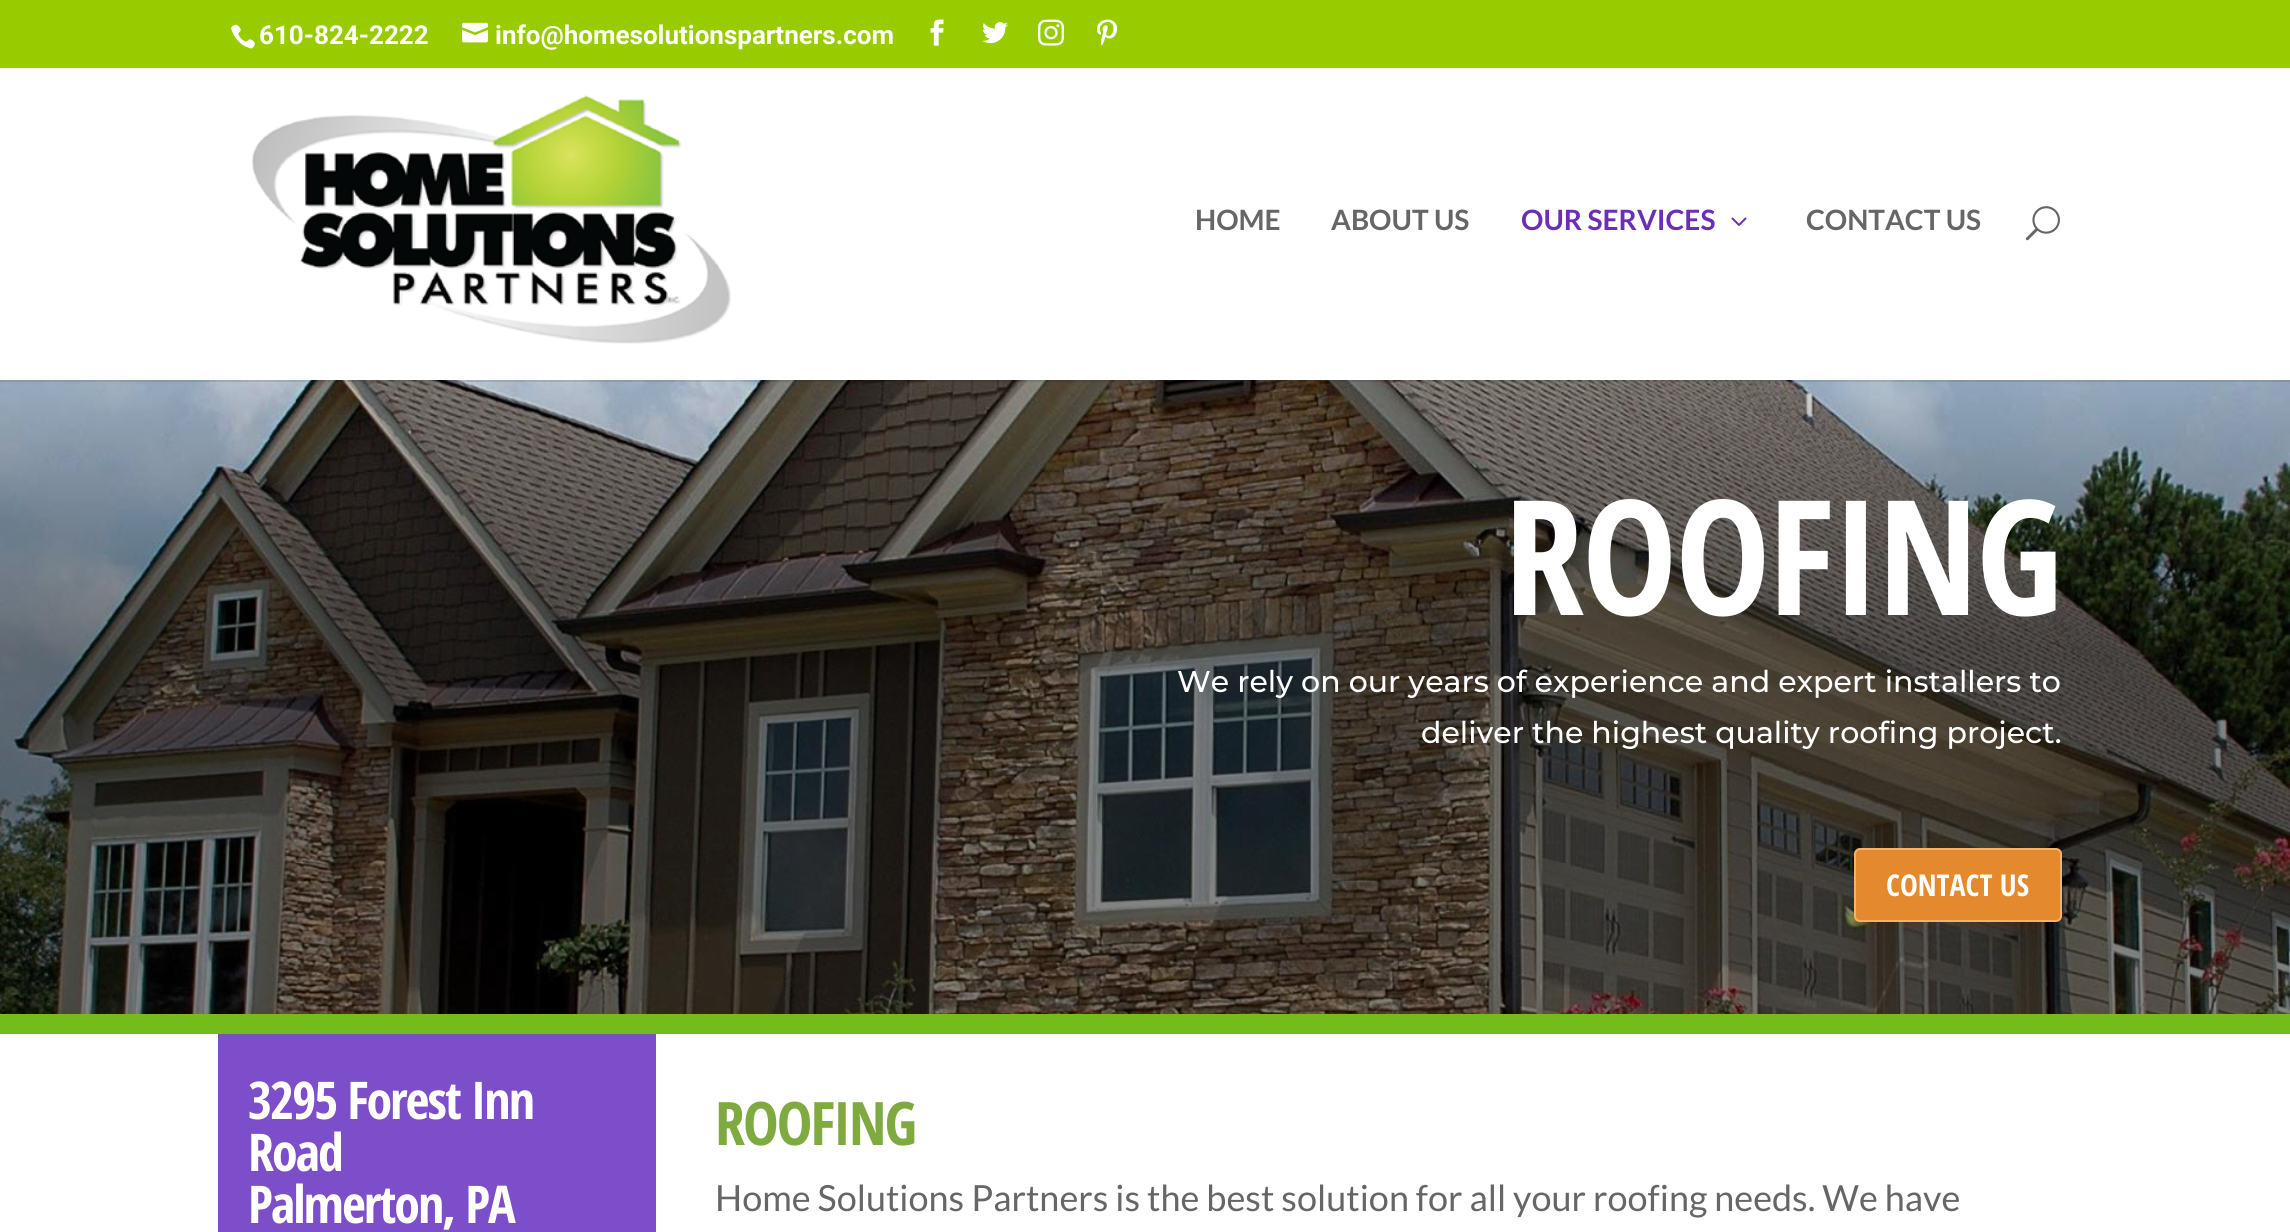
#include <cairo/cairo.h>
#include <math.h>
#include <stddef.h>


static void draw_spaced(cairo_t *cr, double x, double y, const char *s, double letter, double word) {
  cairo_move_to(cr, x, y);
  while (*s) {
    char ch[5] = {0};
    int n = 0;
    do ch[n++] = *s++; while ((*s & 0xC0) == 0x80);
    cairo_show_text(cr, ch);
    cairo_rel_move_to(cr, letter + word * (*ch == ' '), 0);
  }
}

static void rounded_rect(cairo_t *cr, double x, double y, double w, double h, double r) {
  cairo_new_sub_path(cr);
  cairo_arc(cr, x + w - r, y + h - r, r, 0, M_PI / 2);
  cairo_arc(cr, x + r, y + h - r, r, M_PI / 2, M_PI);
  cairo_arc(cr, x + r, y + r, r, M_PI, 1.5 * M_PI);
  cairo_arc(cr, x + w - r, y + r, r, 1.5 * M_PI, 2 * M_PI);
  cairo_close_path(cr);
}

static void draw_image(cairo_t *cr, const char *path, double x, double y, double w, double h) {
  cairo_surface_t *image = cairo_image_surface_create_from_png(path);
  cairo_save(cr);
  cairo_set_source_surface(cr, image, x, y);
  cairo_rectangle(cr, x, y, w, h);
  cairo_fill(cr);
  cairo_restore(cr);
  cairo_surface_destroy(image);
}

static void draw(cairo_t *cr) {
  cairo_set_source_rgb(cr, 1, 1, 1);
  cairo_paint(cr);
  cairo_set_source_rgb(cr, 153 / 255.0, 204 / 255.0, 0);
  cairo_rectangle(cr, 0, 0, 2290, 68);
  cairo_fill(cr);
  draw_image(cr, "images/1.png", 231, 24, 24, 25);
  draw_image(cr, "images/2.png", 462, 22, 26, 21);
  draw_image(cr, "images/3.png", 930, 19, 14, 27);
  draw_image(cr, "images/4.png", 982, 22, 26, 22);
  draw_image(cr, "images/5.png", 1038, 19, 26, 27);
  draw_image(cr, "images/6.png", 1096, 19, 22, 27);
  draw_image(cr, "images/10.png", 0, 380, 2290, 634);
  cairo_set_source_rgba(cr, 0, 0, 0, 0.1);
  cairo_rectangle(cr, 0, 380, 2290, 2);
  cairo_fill(cr);
  draw_image(cr, "images/7.png", 251, 95, 480, 249);
  draw_image(cr, "images/8.png", 1731, 217, 16, 9);
  draw_image(cr, "images/9.png", 2025, 206, 35, 35);
  cairo_set_source_rgb(cr, 116 / 255.0, 188 / 255.0, 28 / 255.0);
  cairo_rectangle(cr, 0, 1014, 2290, 20);
  cairo_fill(cr);
  cairo_set_source_rgb(cr, 228 / 255.0, 137 / 255.0, 45 / 255.0);
  rounded_rect(cr, 1855, 849, 206, 72, 5);
  cairo_fill_preserve(cr);
  cairo_set_source_rgb(cr, 249 / 255.0, 177 / 255.0, 104 / 255.0);
  cairo_stroke(cr);
  cairo_set_source_rgb(cr, 125 / 255.0, 78 / 255.0, 201 / 255.0);
  cairo_rectangle(cr, 218, 1034, 438, 198);
  cairo_fill(cr);
  cairo_select_font_face(cr, "Roboto", CAIRO_FONT_SLANT_NORMAL, CAIRO_FONT_WEIGHT_BOLD);
  cairo_set_font_size(cr, 26);
  cairo_set_source_rgb(cr, 1, 1, 1);
  cairo_move_to(cr, 259, 44);
  cairo_show_text(cr, "610-824-2222");
  cairo_move_to(cr, 495, 44);
  cairo_show_text(cr, "info@homesolutionspartners.com");
  cairo_select_font_face(cr, "Lato", CAIRO_FONT_SLANT_NORMAL, CAIRO_FONT_WEIGHT_BOLD);
  cairo_set_font_size(cr, 28);
  cairo_set_source_rgb(cr, 102 / 255.0, 102 / 255.0, 102 / 255.0);
  cairo_move_to(cr, 1195, 230);
  cairo_show_text(cr, "HOME");
  cairo_move_to(cr, 1331, 230);
  cairo_show_text(cr, "ABOUT US");
  cairo_set_source_rgb(cr, 108 / 255.0, 46 / 255.0, 181 / 255.0);
  cairo_move_to(cr, 1521, 230);
  cairo_show_text(cr, "OUR SERVICES");
  cairo_set_source_rgb(cr, 102 / 255.0, 102 / 255.0, 102 / 255.0);
  cairo_move_to(cr, 1806, 230);
  cairo_show_text(cr, "CONTACT US");
  cairo_select_font_face(cr, "Open Sans Condensed", CAIRO_FONT_SLANT_NORMAL, CAIRO_FONT_WEIGHT_BOLD);
  cairo_set_font_size(cr, 160);
  cairo_set_source_rgb(cr, 1, 1, 1);
  draw_spaced(cr, 1504, 615, "ROOFING", -2, 0);
  cairo_select_font_face(cr, "Montserrat Medium", CAIRO_FONT_SLANT_NORMAL, CAIRO_FONT_WEIGHT_NORMAL);
  cairo_set_font_size(cr, 30);
  cairo_move_to(cr, 1177, 692);
  cairo_show_text(cr, "We rely on our years of experience and expert installers to");
  cairo_move_to(cr, 1421, 743);
  cairo_show_text(cr, "deliver the highest quality roofing project.");
  cairo_select_font_face(cr, "Open Sans Condensed", CAIRO_FONT_SLANT_NORMAL, CAIRO_FONT_WEIGHT_BOLD);
  cairo_move_to(cr, 1886, 896);
  cairo_show_text(cr, "CONTACT US");
  cairo_set_font_size(cr, 52);
  draw_spaced(cr, 248, 1119, "3295 Forest Inn", -2, 0);
  draw_spaced(cr, 248, 1171, "Road", -2, 0);
  draw_spaced(cr, 248, 1223, "Palmerton, PA", -2, 0);
  cairo_set_font_size(cr, 60);
  cairo_set_source_rgb(cr, 127 / 255.0, 170 / 255.0, 64 / 255.0);
  draw_spaced(cr, 715, 1145, "ROOFING", -2, 0);
  cairo_select_font_face(cr, "Lato", CAIRO_FONT_SLANT_NORMAL, CAIRO_FONT_WEIGHT_NORMAL);
  cairo_set_font_size(cr, 36);
  cairo_set_source_rgb(cr, 102 / 255.0, 102 / 255.0, 102 / 255.0);
  cairo_move_to(cr, 715, 1211);
  cairo_show_text(cr, "Home Solutions Partners is the best solution for all your roofing needs. We have");
}

int main(void) {
  cairo_surface_t *surface = cairo_image_surface_create(CAIRO_FORMAT_RGB24, 2290, 1232);
  cairo_t *cr = cairo_create(surface);
  cairo_font_options_t *options = cairo_font_options_create();
  cairo_font_options_set_hint_metrics(options, CAIRO_HINT_METRICS_OFF);
  cairo_font_options_set_hint_style(options, CAIRO_HINT_STYLE_NONE);
  cairo_set_font_options(cr, options);
  cairo_set_miter_limit(cr, 4);
  draw(cr);
  cairo_surface_write_to_png(surface, "out.png");
  cairo_font_options_destroy(options);
  cairo_destroy(cr);
  cairo_surface_destroy(surface);
  return 0;
}
